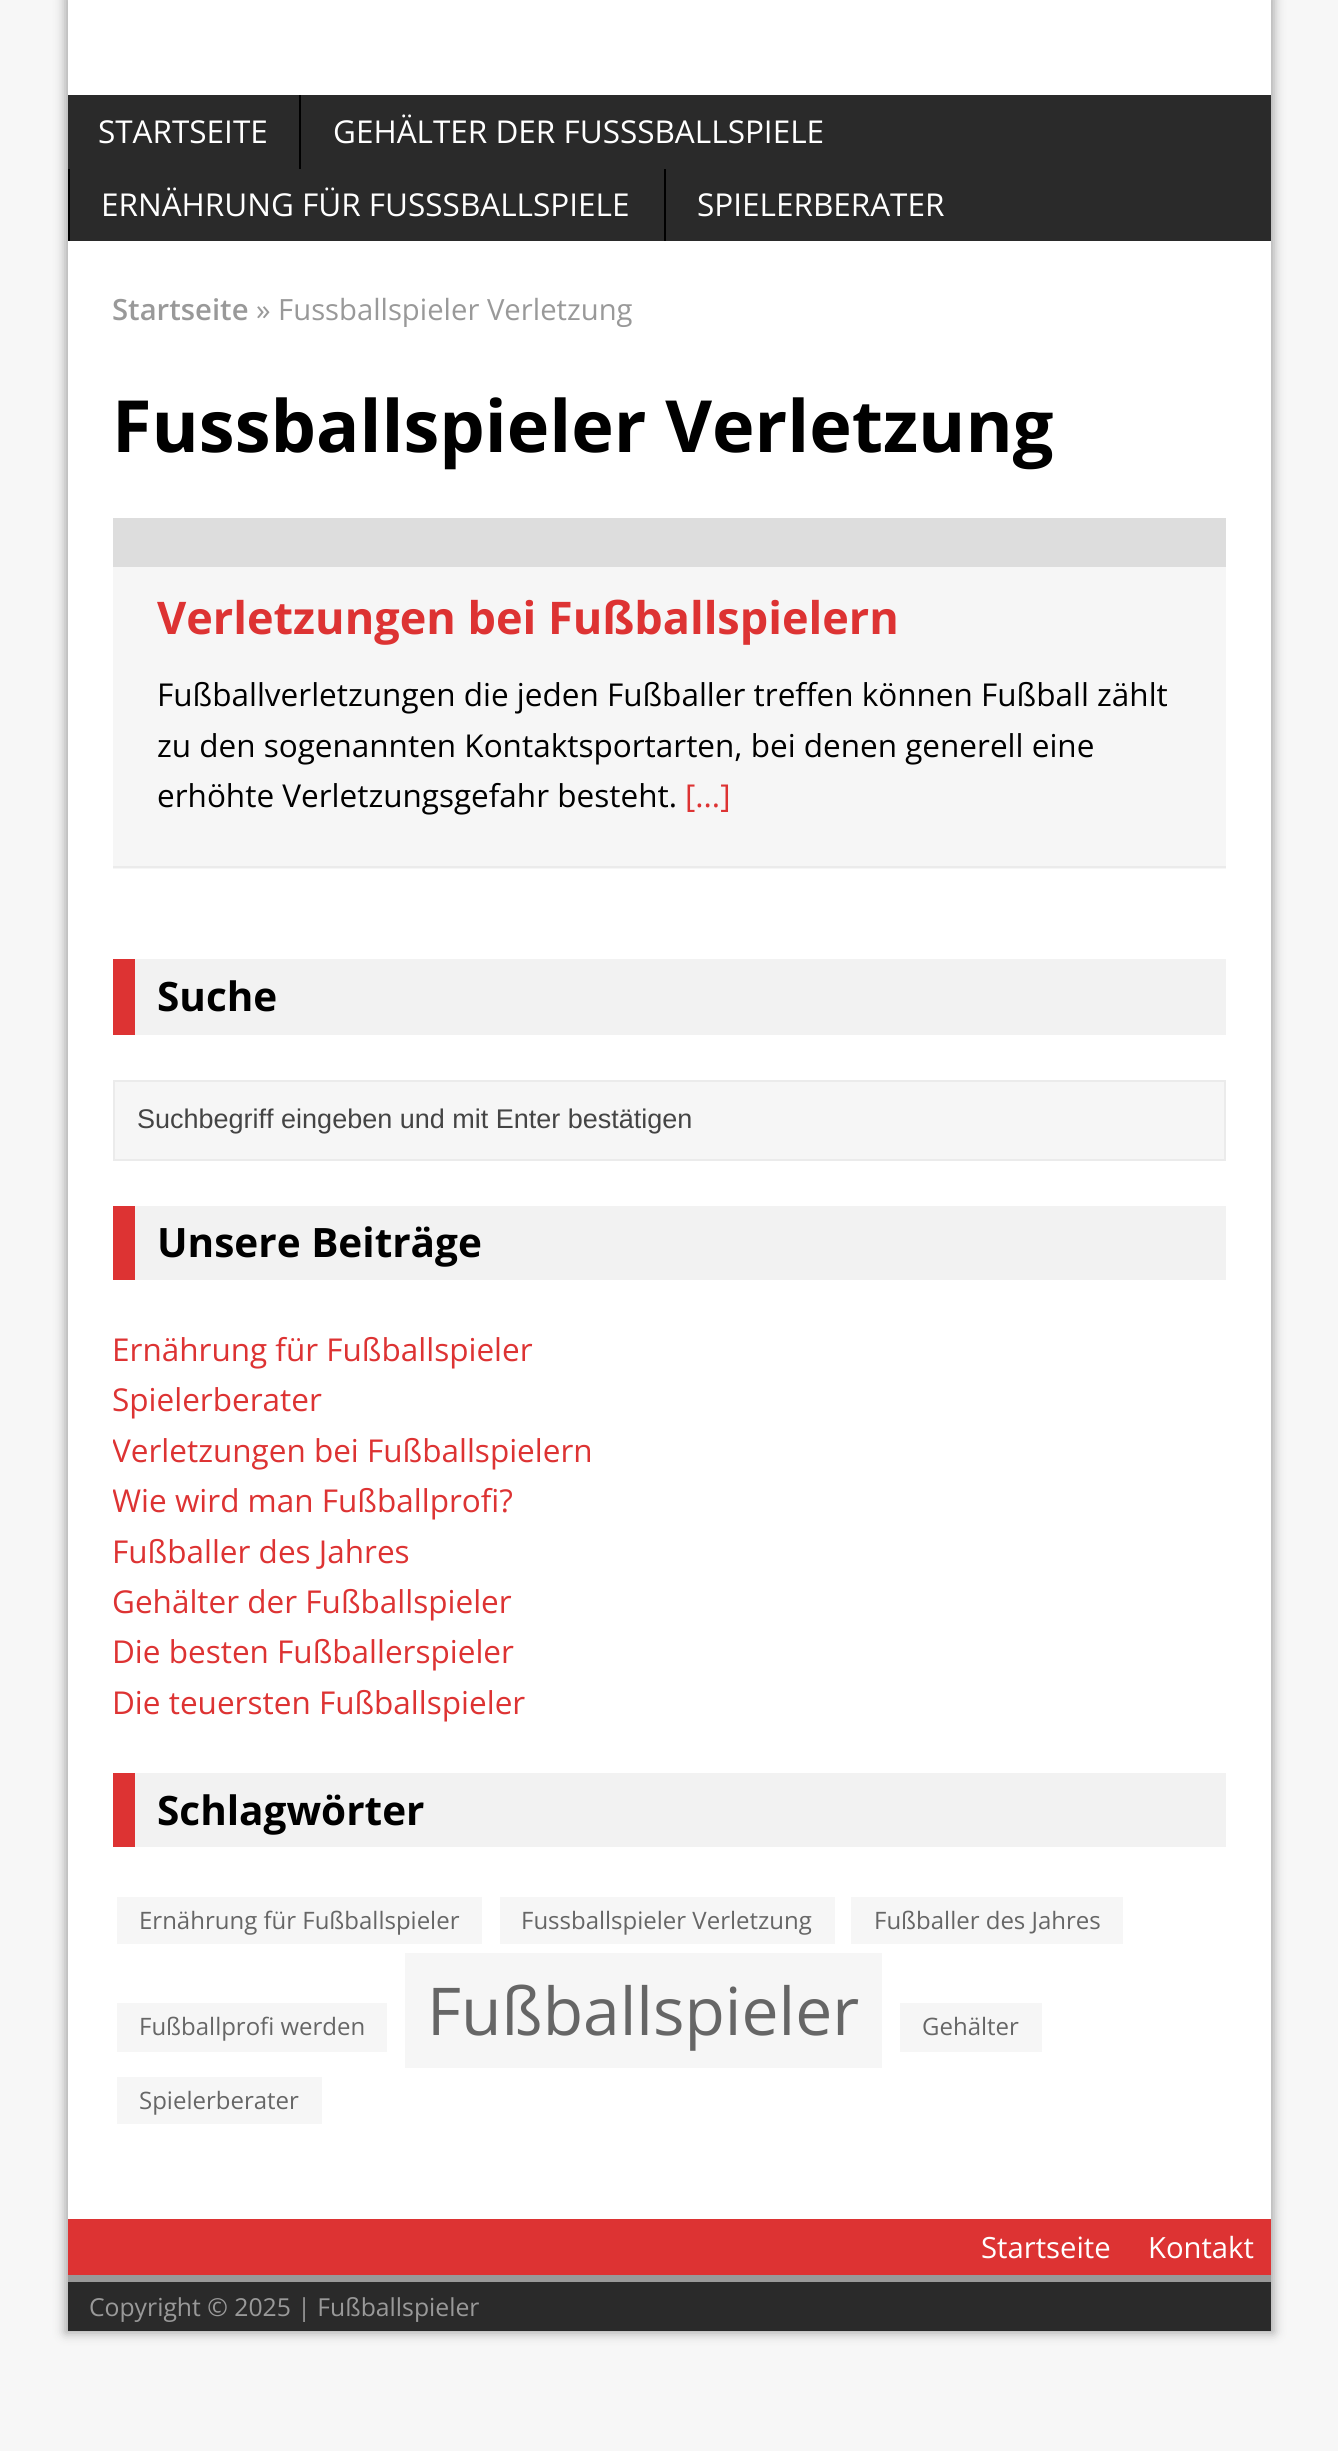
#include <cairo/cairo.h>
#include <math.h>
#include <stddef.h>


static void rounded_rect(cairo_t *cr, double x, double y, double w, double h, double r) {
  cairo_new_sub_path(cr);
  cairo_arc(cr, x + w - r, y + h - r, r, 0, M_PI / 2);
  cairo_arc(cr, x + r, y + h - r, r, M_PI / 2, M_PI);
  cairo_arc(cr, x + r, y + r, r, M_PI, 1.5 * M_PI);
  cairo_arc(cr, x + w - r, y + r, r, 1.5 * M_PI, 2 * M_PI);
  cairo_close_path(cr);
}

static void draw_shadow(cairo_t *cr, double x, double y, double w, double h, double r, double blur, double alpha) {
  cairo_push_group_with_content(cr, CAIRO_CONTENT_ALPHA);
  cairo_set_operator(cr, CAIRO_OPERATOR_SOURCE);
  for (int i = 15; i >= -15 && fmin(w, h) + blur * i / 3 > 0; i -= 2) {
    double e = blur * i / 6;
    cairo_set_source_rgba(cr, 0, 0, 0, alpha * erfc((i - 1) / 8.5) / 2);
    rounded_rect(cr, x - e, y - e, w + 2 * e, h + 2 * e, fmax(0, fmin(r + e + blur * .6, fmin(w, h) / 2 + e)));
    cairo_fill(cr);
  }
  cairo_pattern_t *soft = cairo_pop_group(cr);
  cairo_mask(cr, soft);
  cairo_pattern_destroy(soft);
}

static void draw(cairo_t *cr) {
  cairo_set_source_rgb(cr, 247 / 255.0, 247 / 255.0, 247 / 255.0);
  cairo_paint(cr);
  cairo_set_source_rgb(cr, 168 / 255.0, 168 / 255.0, 168 / 255.0);
  draw_shadow(cr, 65, -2, 1209, 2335, 0, 5.5, 1);
  cairo_set_source_rgb(cr, 1, 1, 1);
  cairo_rectangle(cr, 68, 0, 1203, 95);
  cairo_fill(cr);
  cairo_set_source_rgb(cr, 42 / 255.0, 42 / 255.0, 42 / 255.0);
  cairo_rectangle(cr, 68, 95, 1203, 146);
  cairo_fill(cr);
  cairo_set_source_rgb(cr, 0, 0, 0);
  cairo_rectangle(cr, 299, 95, 2, 74);
  cairo_fill(cr);
  cairo_rectangle(cr, 68, 169, 2, 72);
  cairo_fill(cr);
  cairo_rectangle(cr, 664, 169, 2, 72);
  cairo_fill(cr);
  cairo_set_source_rgb(cr, 1, 1, 1);
  cairo_rectangle(cr, 68, 241, 1203, 1978);
  cairo_fill(cr);
  cairo_set_source_rgb(cr, 246 / 255.0, 246 / 255.0, 246 / 255.0);
  cairo_rectangle(cr, 113, 567, 1113, 302);
  cairo_fill(cr);
  cairo_set_source_rgb(cr, 235 / 255.0, 235 / 255.0, 235 / 255.0);
  cairo_rectangle(cr, 113, 866, 1113, 2);
  cairo_fill(cr);
  cairo_set_source_rgb(cr, 221 / 255.0, 221 / 255.0, 221 / 255.0);
  cairo_rectangle(cr, 113, 518, 1113, 49);
  cairo_fill(cr);
  cairo_set_source_rgb(cr, 242 / 255.0, 242 / 255.0, 242 / 255.0);
  cairo_rectangle(cr, 135, 959, 1091, 76);
  cairo_fill(cr);
  cairo_set_source_rgb(cr, 221 / 255.0, 51 / 255.0, 51 / 255.0);
  cairo_rectangle(cr, 113, 959, 22, 76);
  cairo_fill(cr);
  cairo_set_source_rgb(cr, 246 / 255.0, 246 / 255.0, 246 / 255.0);
  cairo_rectangle(cr, 114, 1081, 1111, 79);
  cairo_fill_preserve(cr);
  cairo_set_source_rgb(cr, 235 / 255.0, 235 / 255.0, 235 / 255.0);
  cairo_stroke(cr);
  cairo_set_source_rgb(cr, 242 / 255.0, 242 / 255.0, 242 / 255.0);
  cairo_rectangle(cr, 135, 1206, 1091, 74);
  cairo_fill(cr);
  cairo_set_source_rgb(cr, 221 / 255.0, 51 / 255.0, 51 / 255.0);
  cairo_rectangle(cr, 113, 1206, 22, 74);
  cairo_fill(cr);
  cairo_set_source_rgb(cr, 242 / 255.0, 242 / 255.0, 242 / 255.0);
  cairo_rectangle(cr, 135, 1773, 1091, 74);
  cairo_fill(cr);
  cairo_set_source_rgb(cr, 221 / 255.0, 51 / 255.0, 51 / 255.0);
  cairo_rectangle(cr, 113, 1773, 22, 74);
  cairo_fill(cr);
  cairo_set_source_rgb(cr, 246 / 255.0, 246 / 255.0, 246 / 255.0);
  cairo_rectangle(cr, 117, 1897, 365, 47);
  cairo_fill(cr);
  cairo_rectangle(cr, 500, 1897, 335, 47);
  cairo_fill(cr);
  cairo_rectangle(cr, 851, 1897, 272, 47);
  cairo_fill(cr);
  cairo_rectangle(cr, 117, 2003, 270, 49);
  cairo_fill(cr);
  cairo_rectangle(cr, 405, 1953, 477, 115);
  cairo_fill(cr);
  cairo_rectangle(cr, 900, 2003, 142, 49);
  cairo_fill(cr);
  cairo_rectangle(cr, 117, 2077, 205, 47);
  cairo_fill(cr);
  cairo_set_source_rgb(cr, 221 / 255.0, 51 / 255.0, 51 / 255.0);
  cairo_rectangle(cr, 68, 2219, 1203, 56);
  cairo_fill(cr);
  cairo_set_source_rgb(cr, 42 / 255.0, 42 / 255.0, 42 / 255.0);
  cairo_rectangle(cr, 68, 2282, 1203, 49);
  cairo_fill(cr);
  cairo_set_source_rgb(cr, 153 / 255.0, 153 / 255.0, 153 / 255.0);
  cairo_rectangle(cr, 68, 2275, 1203, 7);
  cairo_fill(cr);
  cairo_select_font_face(cr, "Open Sans", CAIRO_FONT_SLANT_NORMAL, CAIRO_FONT_WEIGHT_NORMAL);
  cairo_set_font_size(cr, 31.5);
  cairo_set_source_rgb(cr, 1, 1, 1);
  cairo_move_to(cr, 98, 143);
  cairo_show_text(cr, "STARTSEITE");
  cairo_move_to(cr, 333, 143);
  cairo_show_text(cr, "GEHÄLTER DER FUSSSBALLSPIELE");
  cairo_move_to(cr, 101, 216);
  cairo_show_text(cr, "ERNÄHRUNG FÜR FUSSSBALLSPIELE");
  cairo_move_to(cr, 697, 216);
  cairo_show_text(cr, "SPIELERBERATER");
  cairo_select_font_face(cr, "Open Sans SemiBold", CAIRO_FONT_SLANT_NORMAL, CAIRO_FONT_WEIGHT_NORMAL);
  cairo_set_font_size(cr, 29.25);
  cairo_set_source_rgb(cr, 153 / 255.0, 153 / 255.0, 153 / 255.0);
  cairo_move_to(cr, 112, 320);
  cairo_show_text(cr, "Startseite");
  cairo_select_font_face(cr, "Open Sans", CAIRO_FONT_SLANT_NORMAL, CAIRO_FONT_WEIGHT_NORMAL);
  cairo_move_to(cr, 256, 320);
  cairo_show_text(cr, "» Fussballspieler Verletzung");
  cairo_select_font_face(cr, "Open Sans", CAIRO_FONT_SLANT_NORMAL, CAIRO_FONT_WEIGHT_BOLD);
  cairo_set_font_size(cr, 72);
  cairo_set_source_rgb(cr, 0, 0, 0);
  cairo_move_to(cr, 112, 452);
  cairo_show_text(cr, "Fussballspieler Verletzung");
  cairo_set_font_size(cr, 45);
  cairo_set_source_rgb(cr, 221 / 255.0, 51 / 255.0, 51 / 255.0);
  cairo_move_to(cr, 157, 634);
  cairo_show_text(cr, "Verletzungen bei Fußballspielern");
  cairo_select_font_face(cr, "Open Sans", CAIRO_FONT_SLANT_NORMAL, CAIRO_FONT_WEIGHT_NORMAL);
  cairo_set_font_size(cr, 31.5);
  cairo_set_source_rgb(cr, 0, 0, 0);
  cairo_move_to(cr, 157, 706);
  cairo_show_text(cr, "Fußballverletzungen die jeden Fußballer treffen können Fußball zählt");
  cairo_move_to(cr, 157, 757);
  cairo_show_text(cr, "zu den sogenannten Kontaktsportarten, bei denen generell eine");
  cairo_move_to(cr, 157, 807);
  cairo_show_text(cr, "erhöhte Verletzungsgefahr besteht.");
  cairo_set_source_rgb(cr, 221 / 255.0, 51 / 255.0, 51 / 255.0);
  cairo_move_to(cr, 685, 807);
  cairo_show_text(cr, "[...]");
  cairo_select_font_face(cr, "Open Sans", CAIRO_FONT_SLANT_NORMAL, CAIRO_FONT_WEIGHT_BOLD);
  cairo_set_font_size(cr, 40.5);
  cairo_set_source_rgb(cr, 0, 0, 0);
  cairo_move_to(cr, 157, 1011);
  cairo_show_text(cr, "Suche");
  cairo_select_font_face(cr, "Liberation Sans", CAIRO_FONT_SLANT_NORMAL, CAIRO_FONT_WEIGHT_NORMAL);
  cairo_set_font_size(cr, 27);
  cairo_set_source_rgb(cr, 68 / 255.0, 68 / 255.0, 68 / 255.0);
  cairo_move_to(cr, 137, 1128);
  cairo_show_text(cr, "Suchbegriff eingeben und mit Enter bestätigen");
  cairo_select_font_face(cr, "Open Sans", CAIRO_FONT_SLANT_NORMAL, CAIRO_FONT_WEIGHT_BOLD);
  cairo_set_font_size(cr, 40.5);
  cairo_set_source_rgb(cr, 0, 0, 0);
  cairo_move_to(cr, 157, 1257);
  cairo_show_text(cr, "Unsere Beiträge");
  cairo_select_font_face(cr, "Open Sans", CAIRO_FONT_SLANT_NORMAL, CAIRO_FONT_WEIGHT_NORMAL);
  cairo_set_font_size(cr, 31.5);
  cairo_set_source_rgb(cr, 221 / 255.0, 51 / 255.0, 51 / 255.0);
  cairo_move_to(cr, 112, 1361);
  cairo_show_text(cr, "Ernährung für Fußballspieler");
  cairo_move_to(cr, 112, 1411);
  cairo_show_text(cr, "Spielerberater");
  cairo_save(cr);
  cairo_rectangle(cr, 113, 1206, 1113, 522);
  cairo_clip(cr);
  cairo_move_to(cr, 112, 1462);
  cairo_show_text(cr, "Verletzungen bei Fußballspielern");
  cairo_move_to(cr, 112, 1512);
  cairo_show_text(cr, "Wie wird man Fußballprofi?");
  cairo_restore(cr);
  cairo_move_to(cr, 112, 1563);
  cairo_show_text(cr, "Fußballer des Jahres");
  cairo_move_to(cr, 112, 1613);
  cairo_show_text(cr, "Gehälter der Fußballspieler");
  cairo_move_to(cr, 112, 1663);
  cairo_show_text(cr, "Die besten Fußballerspieler");
  cairo_move_to(cr, 112, 1714);
  cairo_show_text(cr, "Die teuersten Fußballspieler");
  cairo_select_font_face(cr, "Open Sans", CAIRO_FONT_SLANT_NORMAL, CAIRO_FONT_WEIGHT_BOLD);
  cairo_set_font_size(cr, 40.5);
  cairo_set_source_rgb(cr, 0, 0, 0);
  cairo_move_to(cr, 157, 1825);
  cairo_show_text(cr, "Schlagwörter");
  cairo_select_font_face(cr, "Open Sans", CAIRO_FONT_SLANT_NORMAL, CAIRO_FONT_WEIGHT_NORMAL);
  cairo_set_font_size(cr, 24);
  cairo_set_source_rgb(cr, 102 / 255.0, 102 / 255.0, 102 / 255.0);
  cairo_move_to(cr, 139, 1929);
  cairo_show_text(cr, "Ernährung für Fußballspieler");
  cairo_move_to(cr, 521, 1929);
  cairo_show_text(cr, "Fussballspieler Verletzung");
  cairo_move_to(cr, 874, 1929);
  cairo_show_text(cr, "Fußballer des Jahres");
  cairo_move_to(cr, 139, 2035);
  cairo_show_text(cr, "Fußballprofi werden");
  cairo_set_font_size(cr, 66);
  cairo_move_to(cr, 427, 2035);
  cairo_show_text(cr, "Fußballspieler");
  cairo_set_font_size(cr, 24);
  cairo_move_to(cr, 922, 2035);
  cairo_show_text(cr, "Gehälter");
  cairo_move_to(cr, 139, 2109);
  cairo_show_text(cr, "Spielerberater");
  cairo_set_font_size(cr, 29.25);
  cairo_set_source_rgb(cr, 1, 1, 1);
  cairo_move_to(cr, 981, 2258);
  cairo_show_text(cr, "Startseite");
  cairo_move_to(cr, 1148, 2258);
  cairo_show_text(cr, "Kontakt");
  cairo_set_font_size(cr, 24.75);
  cairo_set_source_rgb(cr, 153 / 255.0, 153 / 255.0, 153 / 255.0);
  cairo_move_to(cr, 89, 2316);
  cairo_show_text(cr, "Copyright © 2025 | Fußballspieler");
}

int main(void) {
  cairo_surface_t *surface = cairo_image_surface_create(CAIRO_FORMAT_RGB24, 1338, 2451);
  cairo_t *cr = cairo_create(surface);
  cairo_font_options_t *options = cairo_font_options_create();
  cairo_font_options_set_hint_metrics(options, CAIRO_HINT_METRICS_OFF);
  cairo_font_options_set_hint_style(options, CAIRO_HINT_STYLE_NONE);
  cairo_set_font_options(cr, options);
  cairo_set_miter_limit(cr, 4);
  draw(cr);
  cairo_surface_write_to_png(surface, "out.png");
  cairo_font_options_destroy(options);
  cairo_destroy(cr);
  cairo_surface_destroy(surface);
  return 0;
}
